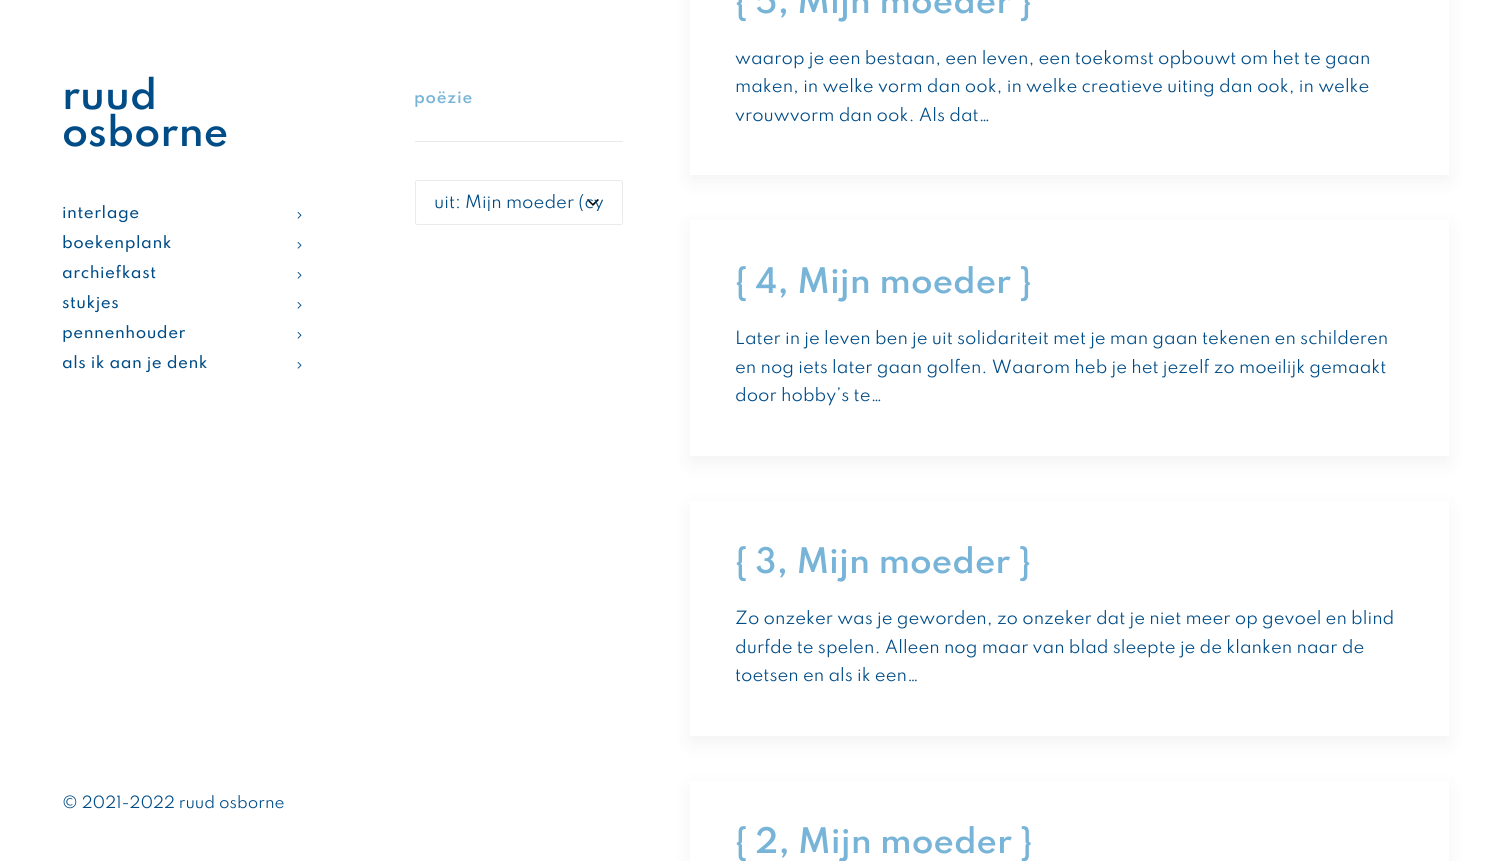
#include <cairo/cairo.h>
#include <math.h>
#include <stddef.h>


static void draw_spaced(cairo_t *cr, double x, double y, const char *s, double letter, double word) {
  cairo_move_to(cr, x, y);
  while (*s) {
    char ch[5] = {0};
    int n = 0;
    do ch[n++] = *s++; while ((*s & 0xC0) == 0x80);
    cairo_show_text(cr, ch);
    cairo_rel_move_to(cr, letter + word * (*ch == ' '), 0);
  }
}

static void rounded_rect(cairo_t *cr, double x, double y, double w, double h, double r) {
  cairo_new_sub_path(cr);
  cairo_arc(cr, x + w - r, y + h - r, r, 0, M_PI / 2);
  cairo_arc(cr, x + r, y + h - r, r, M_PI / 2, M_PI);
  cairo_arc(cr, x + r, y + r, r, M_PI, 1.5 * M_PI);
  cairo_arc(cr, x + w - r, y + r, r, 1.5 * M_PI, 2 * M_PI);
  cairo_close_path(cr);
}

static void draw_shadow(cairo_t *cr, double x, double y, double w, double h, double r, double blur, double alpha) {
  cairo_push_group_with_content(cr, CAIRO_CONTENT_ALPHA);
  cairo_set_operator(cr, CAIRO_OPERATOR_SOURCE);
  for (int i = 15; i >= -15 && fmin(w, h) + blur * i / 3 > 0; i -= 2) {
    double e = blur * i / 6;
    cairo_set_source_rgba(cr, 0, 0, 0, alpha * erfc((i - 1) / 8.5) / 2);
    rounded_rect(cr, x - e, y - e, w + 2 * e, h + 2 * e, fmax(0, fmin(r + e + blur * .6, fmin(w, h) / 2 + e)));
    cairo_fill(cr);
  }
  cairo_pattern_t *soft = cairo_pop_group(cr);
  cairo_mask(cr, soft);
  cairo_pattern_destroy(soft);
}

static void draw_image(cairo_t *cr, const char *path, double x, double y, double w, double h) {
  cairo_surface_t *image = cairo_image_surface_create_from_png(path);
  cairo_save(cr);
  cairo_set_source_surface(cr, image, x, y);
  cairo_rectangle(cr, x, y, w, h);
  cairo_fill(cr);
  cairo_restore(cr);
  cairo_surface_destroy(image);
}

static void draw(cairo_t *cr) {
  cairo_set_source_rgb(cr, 1, 1, 1);
  cairo_paint(cr);
  draw_image(cr, "images/1.png", 297, 212, 5, 7);
  draw_image(cr, "images/1.png", 297, 242, 5, 7);
  draw_image(cr, "images/1.png", 297, 272, 5, 7);
  draw_image(cr, "images/1.png", 297, 302, 5, 7);
  draw_image(cr, "images/1.png", 297, 332, 5, 7);
  draw_image(cr, "images/1.png", 297, 362, 5, 7);
  cairo_set_source_rgb(cr, 234 / 255.0, 234 / 255.0, 234 / 255.0);
  cairo_rectangle(cr, 415, 141, 208, 1);
  cairo_fill(cr);
  draw_image(cr, "images/2.png", 587, 199, 12, 7);
  rounded_rect(cr, 415.5, 180.5, 207, 44, 2);
  cairo_set_line_width(cr, 1);
  cairo_stroke(cr);
  cairo_set_source_rgb(cr, 0, 0, 0);
  draw_shadow(cr, 690, -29, 759, 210, 0, 9.5, 0.05);
  cairo_set_source_rgb(cr, 1, 1, 1);
  cairo_rectangle(cr, 690, 0, 759, 175);
  cairo_fill(cr);
  cairo_set_source_rgb(cr, 0, 0, 0);
  draw_shadow(cr, 690, 226, 759, 237, 0, 9.5, 0.05);
  cairo_set_source_rgb(cr, 1, 1, 1);
  cairo_rectangle(cr, 690, 220, 759, 236);
  cairo_fill(cr);
  cairo_set_source_rgb(cr, 0, 0, 0);
  draw_shadow(cr, 690, 508, 759, 235, 0, 9.5, 0.05);
  cairo_set_source_rgb(cr, 1, 1, 1);
  cairo_rectangle(cr, 690, 501, 759, 235);
  cairo_fill(cr);
  cairo_set_source_rgb(cr, 0, 0, 0);
  draw_shadow(cr, 690, 788, 759, 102, 0, 9.5, 0.05);
  cairo_set_source_rgb(cr, 1, 1, 1);
  cairo_rectangle(cr, 690, 781, 759, 80);
  cairo_fill(cr);
  cairo_select_font_face(cr, "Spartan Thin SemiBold", CAIRO_FONT_SLANT_NORMAL, CAIRO_FONT_WEIGHT_NORMAL);
  cairo_set_font_size(cr, 37.5);
  cairo_set_source_rgb(cr, 0, 76 / 255.0, 135 / 255.0);
  cairo_move_to(cr, 62, 109);
  cairo_show_text(cr, "ruud");
  cairo_move_to(cr, 62, 146);
  cairo_show_text(cr, "osborne");
  cairo_select_font_face(cr, "Spartan Thin Medium", CAIRO_FONT_SLANT_NORMAL, CAIRO_FONT_WEIGHT_NORMAL);
  cairo_set_font_size(cr, 15);
  draw_spaced(cr, 62, 218, "interlage", 0.5, 0);
  draw_spaced(cr, 62, 248, "boekenplank", 0.5, 0);
  draw_spaced(cr, 62, 278, "archiefkast", 0.5, 0);
  draw_spaced(cr, 62, 308, "stukjes", 0.5, 0);
  draw_spaced(cr, 62, 338, "pennenhouder", 0.5, 0);
  draw_spaced(cr, 62, 368, "als ik aan je denk", 0.5, 0);
  cairo_select_font_face(cr, "Spartan Thin", CAIRO_FONT_SLANT_NORMAL, CAIRO_FONT_WEIGHT_NORMAL);
  cairo_move_to(cr, 62, 808);
  cairo_show_text(cr, "© 2021-2022 ruud osborne");
  cairo_select_font_face(cr, "Spartan Thin SemiBold", CAIRO_FONT_SLANT_NORMAL, CAIRO_FONT_WEIGHT_NORMAL);
  cairo_set_source_rgb(cr, 119 / 255.0, 180 / 255.0, 216 / 255.0);
  draw_spaced(cr, 414, 103, "poëzie", 0.75, 0);
  cairo_save(cr);
  cairo_rectangle(cr, 435, 194, 168, 17);
  cairo_clip(cr);
  cairo_select_font_face(cr, "Spartan Thin", CAIRO_FONT_SLANT_NORMAL, CAIRO_FONT_WEIGHT_NORMAL);
  cairo_set_font_size(cr, 16.25);
  cairo_set_source_rgb(cr, 0, 76 / 255.0, 135 / 255.0);
  cairo_move_to(cr, 434, 208);
  cairo_show_text(cr, "uit: Mijn moeder (cy");
  cairo_restore(cr);
  cairo_set_font_size(cr, 31.25);
  cairo_move_to(cr, 735, 13);
  cairo_show_text(cr, "{ 5, Mijn moeder }");
  cairo_select_font_face(cr, "Spartan Thin", CAIRO_FONT_SLANT_NORMAL, CAIRO_FONT_WEIGHT_NORMAL);
  cairo_set_font_size(cr, 16.25);
  cairo_set_source_rgb(cr, 0, 76 / 255.0, 135 / 255.0);
  cairo_move_to(cr, 735, 64);
  cairo_show_text(cr, "waarop je een bestaan, een leven, een toekomst opbouwt om het te gaan");
  cairo_move_to(cr, 735, 92);
  cairo_show_text(cr, "maken, in welke vorm dan ook, in welke creatieve uiting dan ook, in welke");
  cairo_move_to(cr, 735, 121);
  cairo_show_text(cr, "vrouwvorm dan ook. Als dat…");
  cairo_select_font_face(cr, "Spartan Thin SemiBold", CAIRO_FONT_SLANT_NORMAL, CAIRO_FONT_WEIGHT_NORMAL);
  cairo_set_font_size(cr, 31.25);
  cairo_set_source_rgb(cr, 119 / 255.0, 180 / 255.0, 216 / 255.0);
  cairo_move_to(cr, 735, 293);
  cairo_show_text(cr, "{ 4, Mijn moeder }");
  cairo_select_font_face(cr, "Spartan Thin", CAIRO_FONT_SLANT_NORMAL, CAIRO_FONT_WEIGHT_NORMAL);
  cairo_set_font_size(cr, 16.25);
  cairo_set_source_rgb(cr, 0, 76 / 255.0, 135 / 255.0);
  cairo_move_to(cr, 735, 344);
  cairo_show_text(cr, "Later in je leven ben je uit solidariteit met je man gaan tekenen en schilderen");
  cairo_move_to(cr, 735, 373);
  cairo_show_text(cr, "en nog iets later gaan golfen. Waarom heb je het jezelf zo moeilijk gemaakt");
  cairo_move_to(cr, 735, 401);
  cairo_show_text(cr, "door hobby’s te…");
  cairo_select_font_face(cr, "Spartan Thin SemiBold", CAIRO_FONT_SLANT_NORMAL, CAIRO_FONT_WEIGHT_NORMAL);
  cairo_set_font_size(cr, 31.25);
  cairo_set_source_rgb(cr, 119 / 255.0, 180 / 255.0, 216 / 255.0);
  cairo_move_to(cr, 735, 573);
  cairo_show_text(cr, "{ 3, Mijn moeder }");
  cairo_select_font_face(cr, "Spartan Thin", CAIRO_FONT_SLANT_NORMAL, CAIRO_FONT_WEIGHT_NORMAL);
  cairo_set_font_size(cr, 16.25);
  cairo_set_source_rgb(cr, 0, 76 / 255.0, 135 / 255.0);
  cairo_move_to(cr, 735, 624);
  cairo_show_text(cr, "Zo onzeker was je geworden, zo onzeker dat je niet meer op gevoel en blind");
  cairo_move_to(cr, 735, 653);
  cairo_show_text(cr, "durfde te spelen. Alleen nog maar van blad sleepte je de klanken naar de");
  cairo_move_to(cr, 735, 681);
  cairo_show_text(cr, "toetsen en als ik een…");
  cairo_select_font_face(cr, "Spartan Thin SemiBold", CAIRO_FONT_SLANT_NORMAL, CAIRO_FONT_WEIGHT_NORMAL);
  cairo_set_font_size(cr, 31.25);
  cairo_set_source_rgb(cr, 119 / 255.0, 180 / 255.0, 216 / 255.0);
  cairo_move_to(cr, 735, 853);
  cairo_show_text(cr, "{ 2, Mijn moeder }");
}

int main(void) {
  cairo_surface_t *surface = cairo_image_surface_create(CAIRO_FORMAT_RGB24, 1488, 861);
  cairo_t *cr = cairo_create(surface);
  cairo_font_options_t *options = cairo_font_options_create();
  cairo_font_options_set_hint_metrics(options, CAIRO_HINT_METRICS_OFF);
  cairo_font_options_set_hint_style(options, CAIRO_HINT_STYLE_NONE);
  cairo_set_font_options(cr, options);
  cairo_set_miter_limit(cr, 4);
  draw(cr);
  cairo_surface_write_to_png(surface, "out.png");
  cairo_font_options_destroy(options);
  cairo_destroy(cr);
  cairo_surface_destroy(surface);
  return 0;
}
